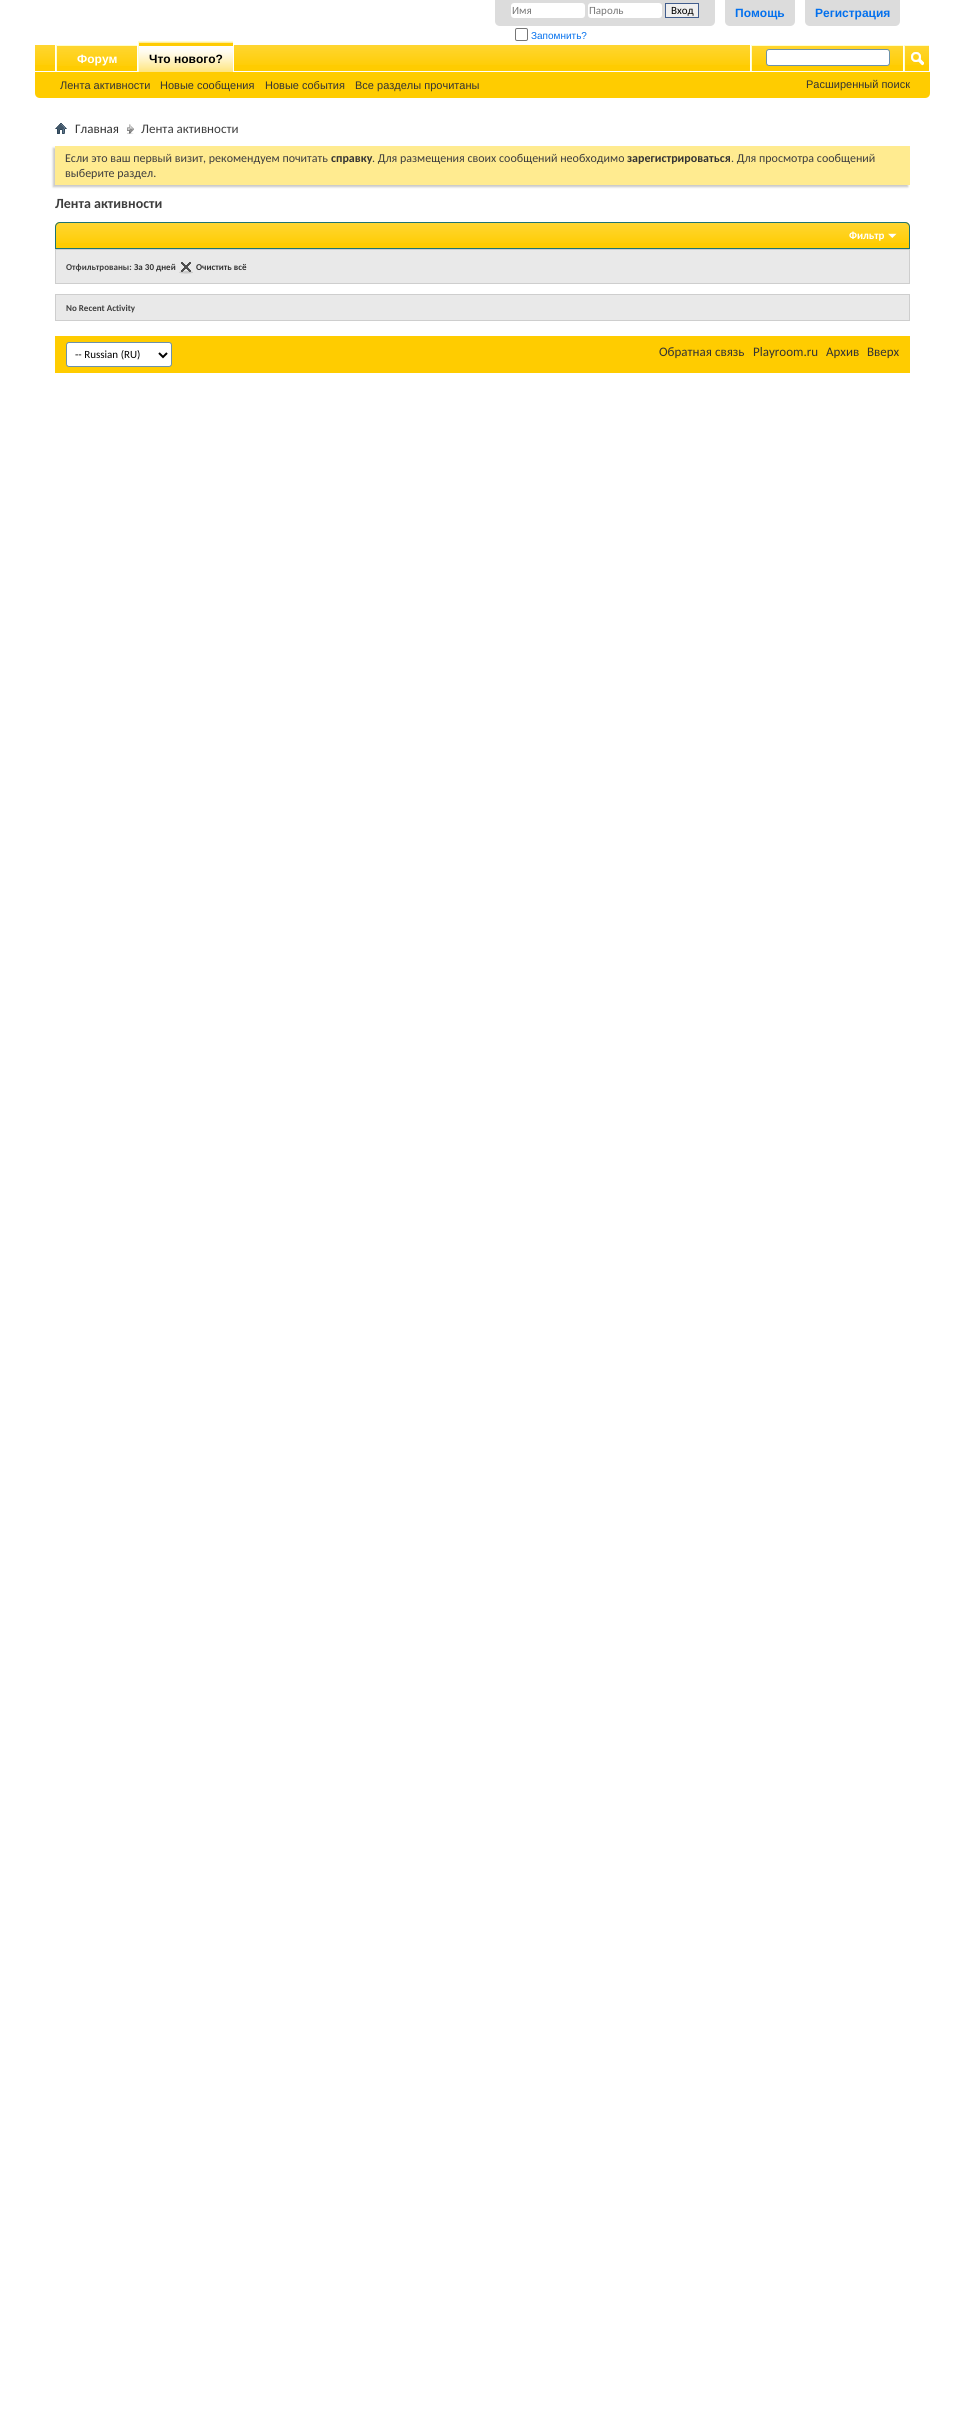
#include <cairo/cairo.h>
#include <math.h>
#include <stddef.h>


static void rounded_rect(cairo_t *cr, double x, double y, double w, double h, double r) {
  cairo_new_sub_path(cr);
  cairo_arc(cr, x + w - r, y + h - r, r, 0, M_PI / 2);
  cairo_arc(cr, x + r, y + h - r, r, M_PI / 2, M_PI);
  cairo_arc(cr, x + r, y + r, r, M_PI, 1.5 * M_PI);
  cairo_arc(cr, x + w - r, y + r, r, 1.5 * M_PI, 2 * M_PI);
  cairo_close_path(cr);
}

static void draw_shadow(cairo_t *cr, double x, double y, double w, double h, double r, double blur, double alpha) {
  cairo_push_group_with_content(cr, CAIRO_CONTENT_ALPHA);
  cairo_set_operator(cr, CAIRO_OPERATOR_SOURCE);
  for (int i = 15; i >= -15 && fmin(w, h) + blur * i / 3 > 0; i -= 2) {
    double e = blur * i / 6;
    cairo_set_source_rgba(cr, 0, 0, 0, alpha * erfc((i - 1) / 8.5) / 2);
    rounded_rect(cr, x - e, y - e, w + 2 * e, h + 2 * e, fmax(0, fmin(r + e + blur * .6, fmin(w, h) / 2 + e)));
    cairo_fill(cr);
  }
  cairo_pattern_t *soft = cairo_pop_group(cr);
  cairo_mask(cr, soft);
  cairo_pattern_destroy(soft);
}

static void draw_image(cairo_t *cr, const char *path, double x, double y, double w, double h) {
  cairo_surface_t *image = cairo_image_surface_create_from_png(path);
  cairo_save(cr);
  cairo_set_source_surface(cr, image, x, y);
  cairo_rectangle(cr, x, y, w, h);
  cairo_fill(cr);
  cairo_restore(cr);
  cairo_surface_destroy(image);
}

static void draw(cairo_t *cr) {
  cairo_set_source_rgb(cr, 1, 1, 1);
  cairo_paint(cr);
  cairo_set_source_rgb(cr, 220 / 255.0, 220 / 255.0, 220 / 255.0);
  cairo_new_path(cr);
  cairo_move_to(cr, 495, 0);
  cairo_line_to(cr, 715, 0);
  cairo_line_to(cr, 715, 21);
  cairo_curve_to(cr, 715, 24, 713, 26, 710, 26);
  cairo_line_to(cr, 500, 26);
  cairo_curve_to(cr, 497, 26, 495, 24, 495, 21);
  cairo_close_path(cr);
  cairo_fill(cr);
  cairo_set_source_rgb(cr, 1, 1, 1);
  rounded_rect(cr, 511, 3, 74, 15, 3);
  cairo_fill(cr);
  rounded_rect(cr, 588, 3, 74, 15, 3);
  cairo_fill(cr);
  cairo_set_source_rgb(cr, 239 / 255.0, 239 / 255.0, 239 / 255.0);
  cairo_rectangle(cr, 665.5, 3.5, 33, 14);
  cairo_fill_preserve(cr);
  cairo_set_source_rgb(cr, 65 / 255.0, 93 / 255.0, 141 / 255.0);
  cairo_set_line_width(cr, 1);
  cairo_stroke(cr);
  rounded_rect(cr, 515.5, 28.5, 12, 12, 1.5);
  cairo_set_source_rgb(cr, 118 / 255.0, 118 / 255.0, 118 / 255.0);
  cairo_stroke(cr);
  cairo_set_source_rgb(cr, 220 / 255.0, 220 / 255.0, 220 / 255.0);
  cairo_new_path(cr);
  cairo_move_to(cr, 725, 0);
  cairo_line_to(cr, 795, 0);
  cairo_line_to(cr, 795, 21);
  cairo_curve_to(cr, 795, 24, 793, 26, 790, 26);
  cairo_line_to(cr, 730, 26);
  cairo_curve_to(cr, 727, 26, 725, 24, 725, 21);
  cairo_close_path(cr);
  cairo_fill(cr);
  cairo_new_path(cr);
  cairo_move_to(cr, 805, 0);
  cairo_line_to(cr, 900, 0);
  cairo_line_to(cr, 900, 21);
  cairo_curve_to(cr, 900, 24, 898, 26, 895, 26);
  cairo_line_to(cr, 810, 26);
  cairo_curve_to(cr, 807, 26, 805, 24, 805, 21);
  cairo_close_path(cr);
  cairo_fill(cr);
  cairo_set_source_rgb(cr, 1, 204 / 255.0, 0);
  cairo_new_path(cr);
  cairo_move_to(cr, 35, 45);
  cairo_line_to(cr, 930, 45);
  cairo_line_to(cr, 930, 93);
  cairo_curve_to(cr, 930, 96, 928, 98, 925, 98);
  cairo_line_to(cr, 40, 98);
  cairo_curve_to(cr, 37, 98, 35, 96, 35, 93);
  cairo_close_path(cr);
  cairo_fill(cr);
  draw_image(cr, "images/1.png", 35, 45, 894, 20);
  cairo_set_source_rgb(cr, 1, 1, 1);
  cairo_rectangle(cr, 137, 45, 1, 27);
  cairo_fill(cr);
  cairo_rectangle(cr, 55, 45, 1, 27);
  cairo_fill(cr);
  cairo_set_source_rgb(cr, 1, 204 / 255.0, 0);
  cairo_rectangle(cr, 57, 46, 80, 19);
  cairo_fill(cr);
  draw_image(cr, "images/2.png", 57, 46, 80, 20);
  cairo_set_source_rgb(cr, 1, 1, 204 / 255.0);
  cairo_rectangle(cr, 56, 45, 81, 1);
  cairo_fill(cr);
  cairo_rectangle(cr, 56, 45, 1, 27);
  cairo_fill(cr);
  cairo_set_source_rgb(cr, 1, 1, 1);
  cairo_rectangle(cr, 233, 45, 1, 26);
  cairo_fill(cr);
  cairo_rectangle(cr, 35, 71, 895, 1);
  cairo_fill(cr);
  cairo_set_source_rgb(cr, 1, 204 / 255.0, 0);
  cairo_rectangle(cr, 139, 42, 94, 30);
  cairo_fill(cr);
  draw_image(cr, "images/3.png", 139, 42, 94, 30);
  cairo_set_source_rgb(cr, 1, 1, 204 / 255.0);
  cairo_rectangle(cr, 138, 41, 95, 1);
  cairo_fill(cr);
  cairo_rectangle(cr, 138, 41, 1, 31);
  cairo_fill(cr);
  cairo_set_source_rgb(cr, 1, 1, 1);
  cairo_rectangle(cr, 750, 45, 1, 26);
  cairo_fill(cr);
  cairo_set_source_rgb(cr, 1, 1, 204 / 255.0);
  cairo_rectangle(cr, 751, 45, 152, 1);
  cairo_fill(cr);
  cairo_rectangle(cr, 751, 45, 1, 26);
  cairo_fill(cr);
  cairo_set_source_rgb(cr, 1, 1, 1);
  rounded_rect(cr, 766.5, 49.5, 123, 16, 2.5);
  cairo_fill_preserve(cr);
  cairo_set_source_rgb(cr, 107 / 255.0, 145 / 255.0, 171 / 255.0);
  cairo_stroke(cr);
  cairo_set_source_rgb(cr, 1, 1, 1);
  cairo_rectangle(cr, 929, 45, 1, 26);
  cairo_fill(cr);
  cairo_rectangle(cr, 903, 45, 1, 26);
  cairo_fill(cr);
  cairo_set_source_rgb(cr, 1, 1, 204 / 255.0);
  cairo_rectangle(cr, 904, 45, 25, 1);
  cairo_fill(cr);
  cairo_rectangle(cr, 904, 45, 1, 26);
  cairo_fill(cr);
  draw_image(cr, "images/4.png", 911, 52, 13, 14);
  draw_image(cr, "images/5.png", 55, 123, 12, 11);
  draw_image(cr, "images/6.png", 127, 124, 7, 10);
  cairo_set_source_rgb(cr, 200 / 255.0, 200 / 255.0, 200 / 255.0);
  draw_shadow(cr, 53, 148, 855, 39, 0, 1, 1);
  cairo_set_source_rgb(cr, 1, 235 / 255.0, 144 / 255.0);
  cairo_rectangle(cr, 55, 146, 855, 39);
  cairo_fill(cr);
  cairo_set_source_rgb(cr, 1, 204 / 255.0, 0);
  cairo_new_path(cr);
  cairo_move_to(cr, 60, 222);
  cairo_line_to(cr, 905, 222);
  cairo_curve_to(cr, 908, 222, 910, 224, 910, 227);
  cairo_line_to(cr, 910, 249);
  cairo_line_to(cr, 55, 249);
  cairo_line_to(cr, 55, 227);
  cairo_curve_to(cr, 55, 224, 57, 222, 60, 222);
  cairo_close_path(cr);
  cairo_fill(cr);
  draw_image(cr, "images/7.png", 55, 223, 855, 20);
  cairo_new_path(cr);
  cairo_move_to(cr, 60, 222.5);
  cairo_line_to(cr, 905, 222.5);
  cairo_curve_to(cr, 907.5, 222.5, 909.5, 224.5, 909.5, 227);
  cairo_line_to(cr, 909.5, 248.5);
  cairo_line_to(cr, 55.5, 248.5);
  cairo_line_to(cr, 55.5, 227);
  cairo_curve_to(cr, 55.5, 224.5, 57.5, 222.5, 60, 222.5);
  cairo_close_path(cr);
  cairo_set_source_rgb(cr, 29 / 255.0, 115 / 255.0, 115 / 255.0);
  cairo_stroke(cr);
  draw_image(cr, "images/8.png", 888, 233, 9, 5);
  cairo_set_source_rgb(cr, 233 / 255.0, 233 / 255.0, 233 / 255.0);
  cairo_rectangle(cr, 55.5, 249.5, 854, 34);
  cairo_fill_preserve(cr);
  cairo_set_source_rgb(cr, 206 / 255.0, 206 / 255.0, 206 / 255.0);
  cairo_stroke(cr);
  draw_image(cr, "images/9.png", 179, 262, 14, 12);
  cairo_set_source_rgb(cr, 233 / 255.0, 233 / 255.0, 233 / 255.0);
  cairo_rectangle(cr, 55.5, 294.5, 854, 26);
  cairo_fill_preserve(cr);
  cairo_set_source_rgb(cr, 206 / 255.0, 206 / 255.0, 206 / 255.0);
  cairo_stroke(cr);
  cairo_set_source_rgb(cr, 1, 204 / 255.0, 0);
  cairo_rectangle(cr, 55, 336, 855, 37);
  cairo_fill(cr);
  cairo_set_source_rgb(cr, 1, 1, 1);
  rounded_rect(cr, 66.5, 342.5, 105, 24, 2.5);
  cairo_fill_preserve(cr);
  cairo_set_source_rgb(cr, 107 / 255.0, 145 / 255.0, 171 / 255.0);
  cairo_stroke(cr);
  cairo_new_path(cr);
  cairo_move_to(cr, 159, 353);
  cairo_line_to(cr, 163, 357);
  cairo_line_to(cr, 167, 353);
  cairo_set_source_rgb(cr, 0, 0, 0);
  cairo_set_line_width(cr, 2);
  cairo_stroke(cr);
  cairo_select_font_face(cr, "Carlito", CAIRO_FONT_SLANT_NORMAL, CAIRO_FONT_WEIGHT_NORMAL);
  cairo_set_font_size(cr, 11);
  cairo_set_source_rgb(cr, 119 / 255.0, 119 / 255.0, 119 / 255.0);
  cairo_move_to(cr, 512, 14);
  cairo_show_text(cr, "Имя");
  cairo_move_to(cr, 589, 14);
  cairo_show_text(cr, "Пароль");
  cairo_set_source_rgb(cr, 0, 0, 0);
  cairo_move_to(cr, 671, 14);
  cairo_show_text(cr, "Вход");
  cairo_select_font_face(cr, "Liberation Sans", CAIRO_FONT_SLANT_NORMAL, CAIRO_FONT_WEIGHT_NORMAL);
  cairo_set_font_size(cr, 10);
  cairo_set_source_rgb(cr, 3 / 255.0, 112 / 255.0, 237 / 255.0);
  cairo_move_to(cr, 531, 39);
  cairo_show_text(cr, "Запомнить?");
  cairo_select_font_face(cr, "Liberation Sans", CAIRO_FONT_SLANT_NORMAL, CAIRO_FONT_WEIGHT_BOLD);
  cairo_set_font_size(cr, 12);
  cairo_move_to(cr, 735, 17);
  cairo_show_text(cr, "Помощь");
  cairo_move_to(cr, 815, 17);
  cairo_show_text(cr, "Регистрация");
  cairo_set_source_rgb(cr, 1, 1, 1);
  cairo_move_to(cr, 77, 63);
  cairo_show_text(cr, "Форум");
  cairo_set_source_rgb(cr, 0, 0, 0);
  cairo_move_to(cr, 149, 63);
  cairo_show_text(cr, "Что нового?");
  cairo_select_font_face(cr, "Liberation Sans", CAIRO_FONT_SLANT_NORMAL, CAIRO_FONT_WEIGHT_NORMAL);
  cairo_set_font_size(cr, 11);
  cairo_set_source_rgb(cr, 51 / 255.0, 51 / 255.0, 51 / 255.0);
  cairo_move_to(cr, 60, 89);
  cairo_show_text(cr, "Лента активности");
  cairo_move_to(cr, 160, 89);
  cairo_show_text(cr, "Новые сообщения");
  cairo_move_to(cr, 265, 89);
  cairo_show_text(cr, "Новые события");
  cairo_move_to(cr, 355, 89);
  cairo_show_text(cr, "Все разделы прочитаны");
  cairo_move_to(cr, 806, 88);
  cairo_show_text(cr, "Расширенный поиск");
  cairo_select_font_face(cr, "Carlito", CAIRO_FONT_SLANT_NORMAL, CAIRO_FONT_WEIGHT_NORMAL);
  cairo_set_font_size(cr, 13);
  cairo_move_to(cr, 75, 133);
  cairo_show_text(cr, "Главная");
  cairo_set_source_rgb(cr, 62 / 255.0, 62 / 255.0, 62 / 255.0);
  cairo_move_to(cr, 141, 133);
  cairo_show_text(cr, "Лента активности");
  cairo_set_font_size(cr, 12);
  cairo_move_to(cr, 65, 162);
  cairo_show_text(cr, "Если это ваш первый визит, рекомендуем почитать");
  cairo_select_font_face(cr, "Carlito", CAIRO_FONT_SLANT_NORMAL, CAIRO_FONT_WEIGHT_BOLD);
  cairo_set_source_rgb(cr, 51 / 255.0, 51 / 255.0, 51 / 255.0);
  cairo_move_to(cr, 331, 162);
  cairo_show_text(cr, "справку");
  cairo_select_font_face(cr, "Carlito", CAIRO_FONT_SLANT_NORMAL, CAIRO_FONT_WEIGHT_NORMAL);
  cairo_set_source_rgb(cr, 62 / 255.0, 62 / 255.0, 62 / 255.0);
  cairo_move_to(cr, 372, 162);
  cairo_show_text(cr, ". Для размещения своих сообщений необходимо");
  cairo_select_font_face(cr, "Carlito", CAIRO_FONT_SLANT_NORMAL, CAIRO_FONT_WEIGHT_BOLD);
  cairo_set_source_rgb(cr, 51 / 255.0, 51 / 255.0, 51 / 255.0);
  cairo_move_to(cr, 627, 162);
  cairo_show_text(cr, "зарегистрироваться");
  cairo_select_font_face(cr, "Carlito", CAIRO_FONT_SLANT_NORMAL, CAIRO_FONT_WEIGHT_NORMAL);
  cairo_set_source_rgb(cr, 62 / 255.0, 62 / 255.0, 62 / 255.0);
  cairo_move_to(cr, 731, 162);
  cairo_show_text(cr, ". Для просмотра сообщений");
  cairo_move_to(cr, 65, 177);
  cairo_show_text(cr, "выберите раздел.");
  cairo_select_font_face(cr, "Carlito", CAIRO_FONT_SLANT_NORMAL, CAIRO_FONT_WEIGHT_BOLD);
  cairo_set_font_size(cr, 14);
  cairo_move_to(cr, 55, 208);
  cairo_show_text(cr, "Лента активности");
  cairo_set_font_size(cr, 11);
  cairo_set_source_rgb(cr, 1, 1, 1);
  cairo_move_to(cr, 849, 239);
  cairo_show_text(cr, "Фильтр");
  cairo_set_font_size(cr, 9);
  cairo_set_source_rgb(cr, 62 / 255.0, 62 / 255.0, 62 / 255.0);
  cairo_move_to(cr, 66, 270);
  cairo_show_text(cr, "Отфильтрованы:");
  cairo_set_source_rgb(cr, 51 / 255.0, 51 / 255.0, 51 / 255.0);
  cairo_move_to(cr, 134, 270);
  cairo_show_text(cr, "За 30 дней");
  cairo_move_to(cr, 196, 270);
  cairo_show_text(cr, "Очистить всё");
  cairo_set_source_rgb(cr, 62 / 255.0, 62 / 255.0, 62 / 255.0);
  cairo_move_to(cr, 66, 311);
  cairo_show_text(cr, "No Recent Activity");
  cairo_select_font_face(cr, "Carlito", CAIRO_FONT_SLANT_NORMAL, CAIRO_FONT_WEIGHT_NORMAL);
  cairo_set_font_size(cr, 11);
  cairo_set_source_rgb(cr, 0, 0, 0);
  cairo_move_to(cr, 75, 358);
  cairo_show_text(cr, "-- Russian (RU)");
  cairo_set_font_size(cr, 13);
  cairo_set_source_rgb(cr, 51 / 255.0, 51 / 255.0, 51 / 255.0);
  cairo_move_to(cr, 659, 356);
  cairo_show_text(cr, "Обратная связь");
  cairo_move_to(cr, 753, 356);
  cairo_show_text(cr, "Playroom.ru");
  cairo_move_to(cr, 826, 356);
  cairo_show_text(cr, "Архив");
  cairo_move_to(cr, 867, 356);
  cairo_show_text(cr, "Вверх");
}

int main(void) {
  cairo_surface_t *surface = cairo_image_surface_create(CAIRO_FORMAT_RGB24, 965, 2432);
  cairo_t *cr = cairo_create(surface);
  cairo_font_options_t *options = cairo_font_options_create();
  cairo_font_options_set_hint_metrics(options, CAIRO_HINT_METRICS_OFF);
  cairo_font_options_set_hint_style(options, CAIRO_HINT_STYLE_NONE);
  cairo_set_font_options(cr, options);
  cairo_set_miter_limit(cr, 4);
  draw(cr);
  cairo_surface_write_to_png(surface, "out.png");
  cairo_font_options_destroy(options);
  cairo_destroy(cr);
  cairo_surface_destroy(surface);
  return 0;
}
